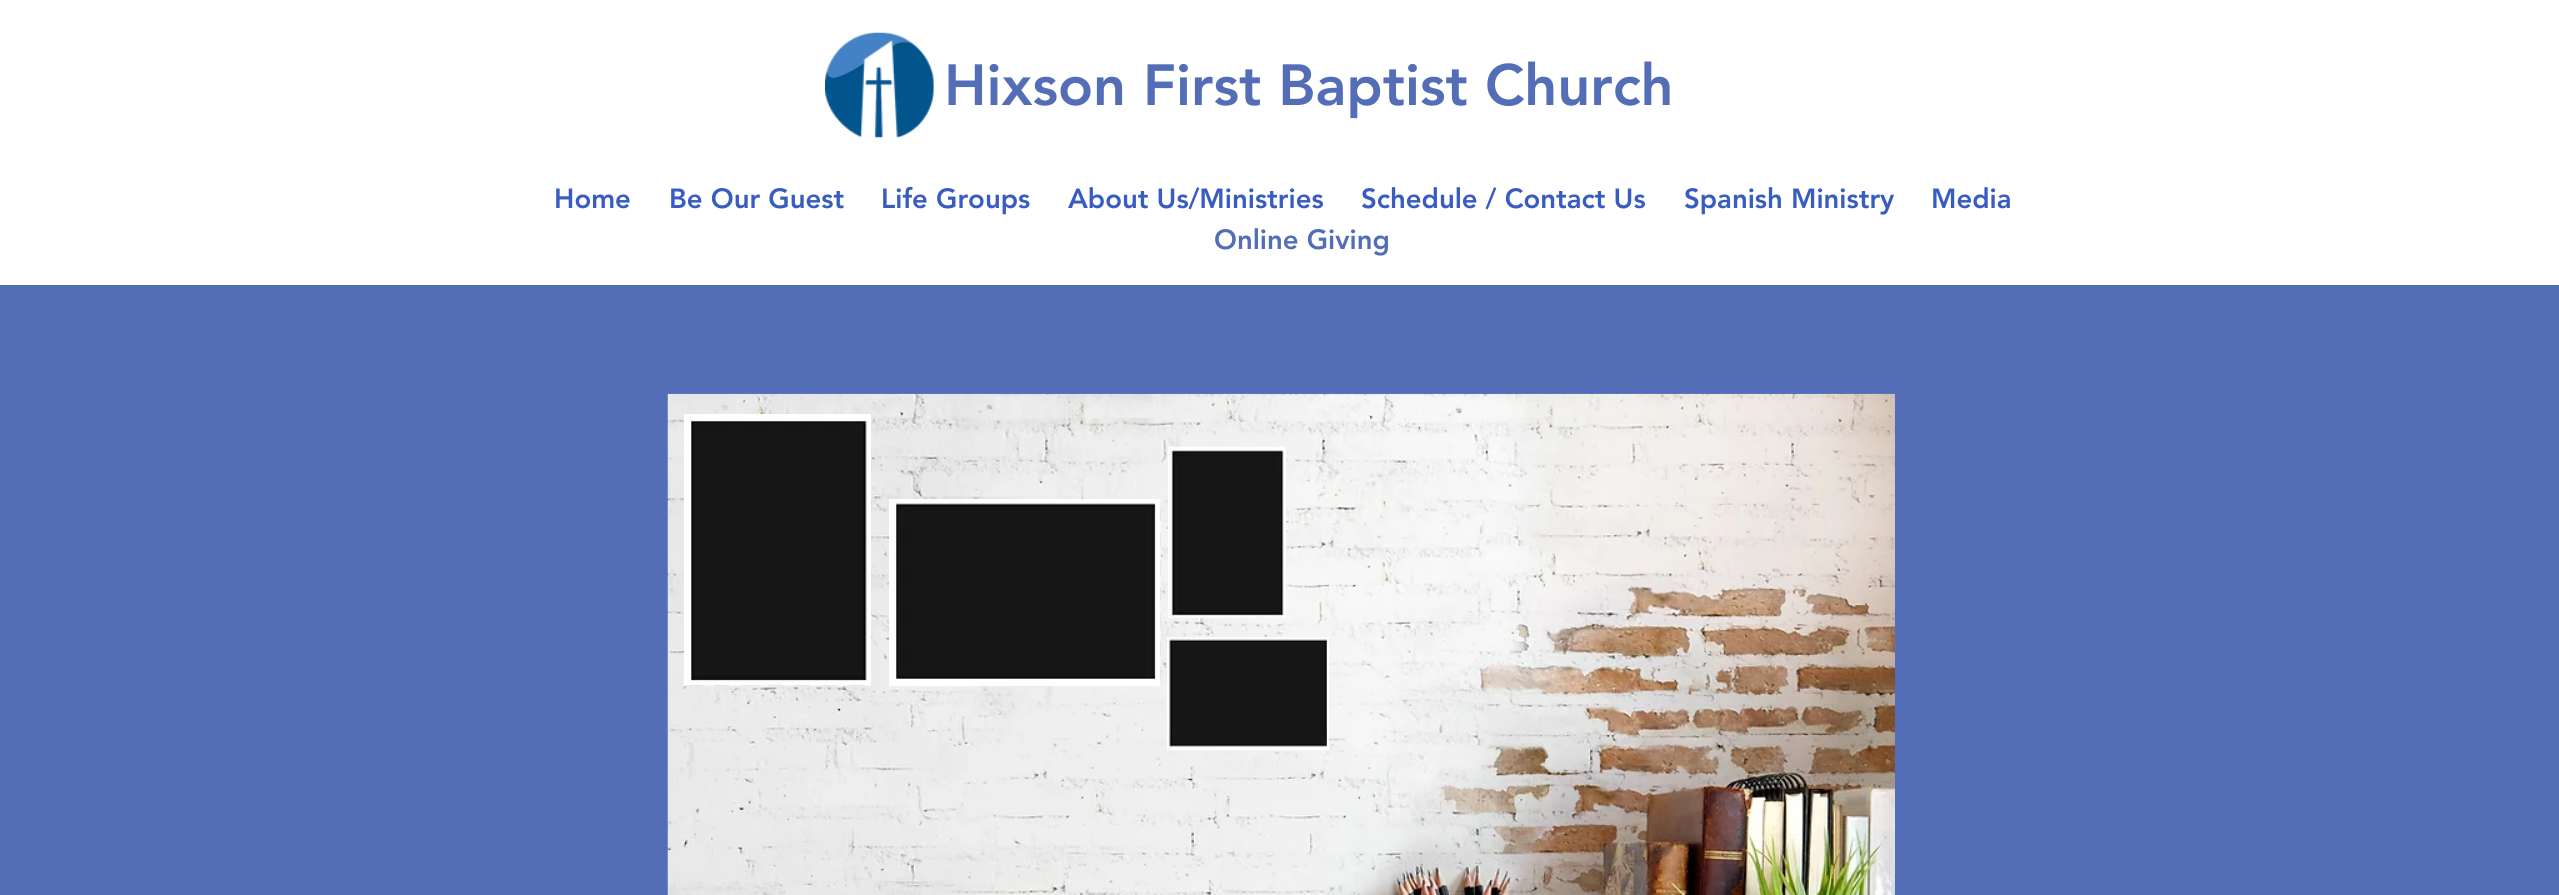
#include <cairo/cairo.h>
#include <math.h>
#include <stddef.h>


static void draw_image(cairo_t *cr, const char *path, double x, double y, double w, double h) {
  cairo_surface_t *image = cairo_image_surface_create_from_png(path);
  cairo_save(cr);
  cairo_set_source_surface(cr, image, x, y);
  cairo_rectangle(cr, x, y, w, h);
  cairo_fill(cr);
  cairo_restore(cr);
  cairo_surface_destroy(image);
}

static void draw(cairo_t *cr) {
  cairo_set_source_rgb(cr, 83 / 255.0, 110 / 255.0, 183 / 255.0);
  cairo_paint(cr);
  cairo_set_source_rgb(cr, 1, 1, 1);
  cairo_rectangle(cr, 0, 0, 2559, 285);
  cairo_fill(cr);
  draw_image(cr, "images/1.png", 825, 32, 109, 106);
  draw_image(cr, "images/2.png", 667, 393, 1228, 502);
  draw_image(cr, "images/3.png", 684, 414, 187, 272);
  draw_image(cr, "images/4.png", 889, 499, 272, 187);
  draw_image(cr, "images/5.png", 1168, 446, 118, 173);
  draw_image(cr, "images/6.png", 1167, 637, 162, 114);
  cairo_select_font_face(cr, "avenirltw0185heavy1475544 Black", CAIRO_FONT_SLANT_NORMAL, CAIRO_FONT_WEIGHT_NORMAL);
  cairo_set_font_size(cr, 57.5);
  cairo_set_source_rgb(cr, 83 / 255.0, 110 / 255.0, 183 / 255.0);
  cairo_move_to(cr, 944, 105);
  cairo_show_text(cr, "Hixson First Baptist Church");
  cairo_set_font_size(cr, 27.5);
  cairo_set_source_rgb(cr, 56 / 255.0, 92 / 255.0, 193 / 255.0);
  cairo_move_to(cr, 554, 208);
  cairo_show_text(cr, "Home");
  cairo_move_to(cr, 669, 208);
  cairo_show_text(cr, "Be Our Guest");
  cairo_move_to(cr, 881, 208);
  cairo_show_text(cr, "Life Groups");
  cairo_move_to(cr, 1068, 208);
  cairo_show_text(cr, "About Us/Ministries");
  cairo_move_to(cr, 1361, 208);
  cairo_show_text(cr, "Schedule / Contact Us");
  cairo_move_to(cr, 1684, 208);
  cairo_show_text(cr, "Spanish Ministry");
  cairo_move_to(cr, 1931, 208);
  cairo_show_text(cr, "Media");
  cairo_set_source_rgb(cr, 83 / 255.0, 110 / 255.0, 183 / 255.0);
  cairo_move_to(cr, 1214, 249);
  cairo_show_text(cr, "Online Giving");
}

int main(void) {
  cairo_surface_t *surface = cairo_image_surface_create(CAIRO_FORMAT_RGB24, 2559, 895);
  cairo_t *cr = cairo_create(surface);
  cairo_font_options_t *options = cairo_font_options_create();
  cairo_font_options_set_hint_metrics(options, CAIRO_HINT_METRICS_OFF);
  cairo_font_options_set_hint_style(options, CAIRO_HINT_STYLE_NONE);
  cairo_set_font_options(cr, options);
  cairo_set_miter_limit(cr, 4);
  draw(cr);
  cairo_surface_write_to_png(surface, "out.png");
  cairo_font_options_destroy(options);
  cairo_destroy(cr);
  cairo_surface_destroy(surface);
  return 0;
}
